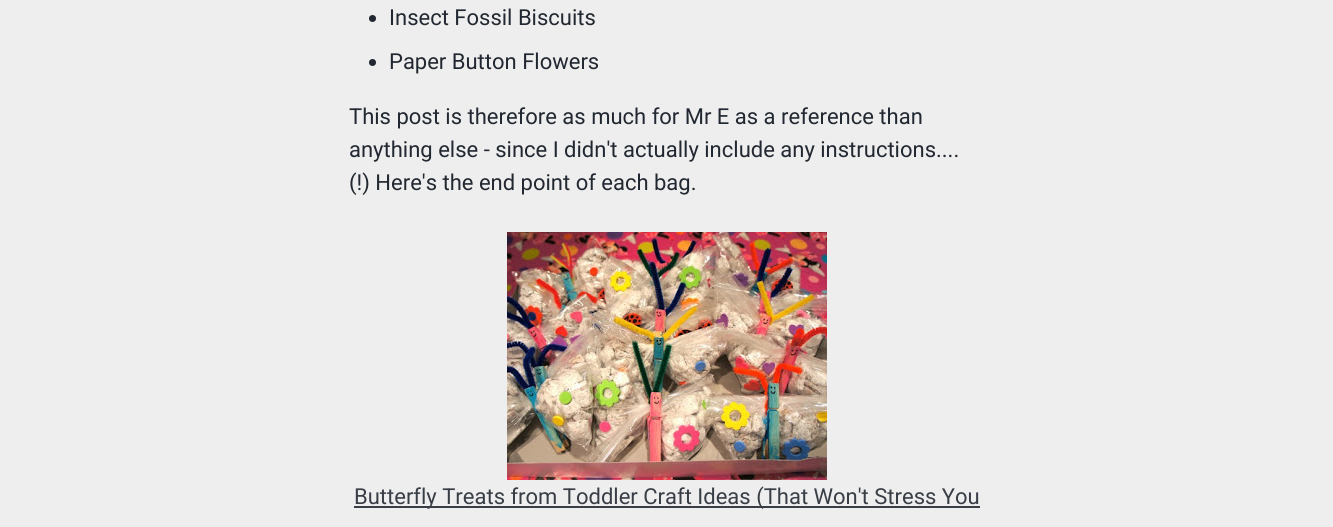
#include <cairo/cairo.h>
#include <math.h>
#include <stddef.h>


static void draw_image(cairo_t *cr, const char *path, double x, double y, double w, double h) {
  cairo_surface_t *image = cairo_image_surface_create_from_png(path);
  cairo_save(cr);
  cairo_set_source_surface(cr, image, x, y);
  cairo_rectangle(cr, x, y, w, h);
  cairo_fill(cr);
  cairo_restore(cr);
  cairo_surface_destroy(image);
}

static void draw(cairo_t *cr) {
  cairo_set_source_rgb(cr, 238 / 255.0, 238 / 255.0, 238 / 255.0);
  cairo_paint(cr);
  cairo_set_source_rgb(cr, 34 / 255.0, 40 / 255.0, 49 / 255.0);
  cairo_arc(cr, 372.5, 18.5, 3.5, 0, 2 * M_PI);
  cairo_fill(cr);
  cairo_arc(cr, 372.5, 62.5, 3.5, 0, 2 * M_PI);
  cairo_fill(cr);
  draw_image(cr, "images/1.png", 507, 232, 320, 248);
  cairo_set_source_rgb(cr, 57 / 255.0, 62 / 255.0, 70 / 255.0);
  cairo_rectangle(cr, 354, 506, 626, 2);
  cairo_fill(cr);
  cairo_select_font_face(cr, "Roboto", CAIRO_FONT_SLANT_NORMAL, CAIRO_FONT_WEIGHT_NORMAL);
  cairo_set_font_size(cr, 22);
  cairo_set_source_rgb(cr, 34 / 255.0, 40 / 255.0, 49 / 255.0);
  cairo_move_to(cr, 389, 25);
  cairo_show_text(cr, "Insect Fossil Biscuits");
  cairo_move_to(cr, 389, 69);
  cairo_show_text(cr, "Paper Button Flowers");
  cairo_move_to(cr, 349, 124);
  cairo_show_text(cr, "This post is therefore as much for Mr E as a reference than");
  cairo_move_to(cr, 349, 157);
  cairo_show_text(cr, "anything else - since I didn't actually include any instructions....");
  cairo_move_to(cr, 349, 190);
  cairo_show_text(cr, "(!) Here's the end point of each bag.");
  cairo_set_source_rgb(cr, 57 / 255.0, 62 / 255.0, 70 / 255.0);
  cairo_move_to(cr, 354, 504);
  cairo_show_text(cr, "Butterfly Treats from Toddler Craft Ideas (That Won't Stress You");
}

int main(void) {
  cairo_surface_t *surface = cairo_image_surface_create(CAIRO_FORMAT_RGB24, 1333, 527);
  cairo_t *cr = cairo_create(surface);
  cairo_font_options_t *options = cairo_font_options_create();
  cairo_font_options_set_hint_metrics(options, CAIRO_HINT_METRICS_OFF);
  cairo_font_options_set_hint_style(options, CAIRO_HINT_STYLE_NONE);
  cairo_set_font_options(cr, options);
  cairo_set_miter_limit(cr, 4);
  draw(cr);
  cairo_surface_write_to_png(surface, "out.png");
  cairo_font_options_destroy(options);
  cairo_destroy(cr);
  cairo_surface_destroy(surface);
  return 0;
}
